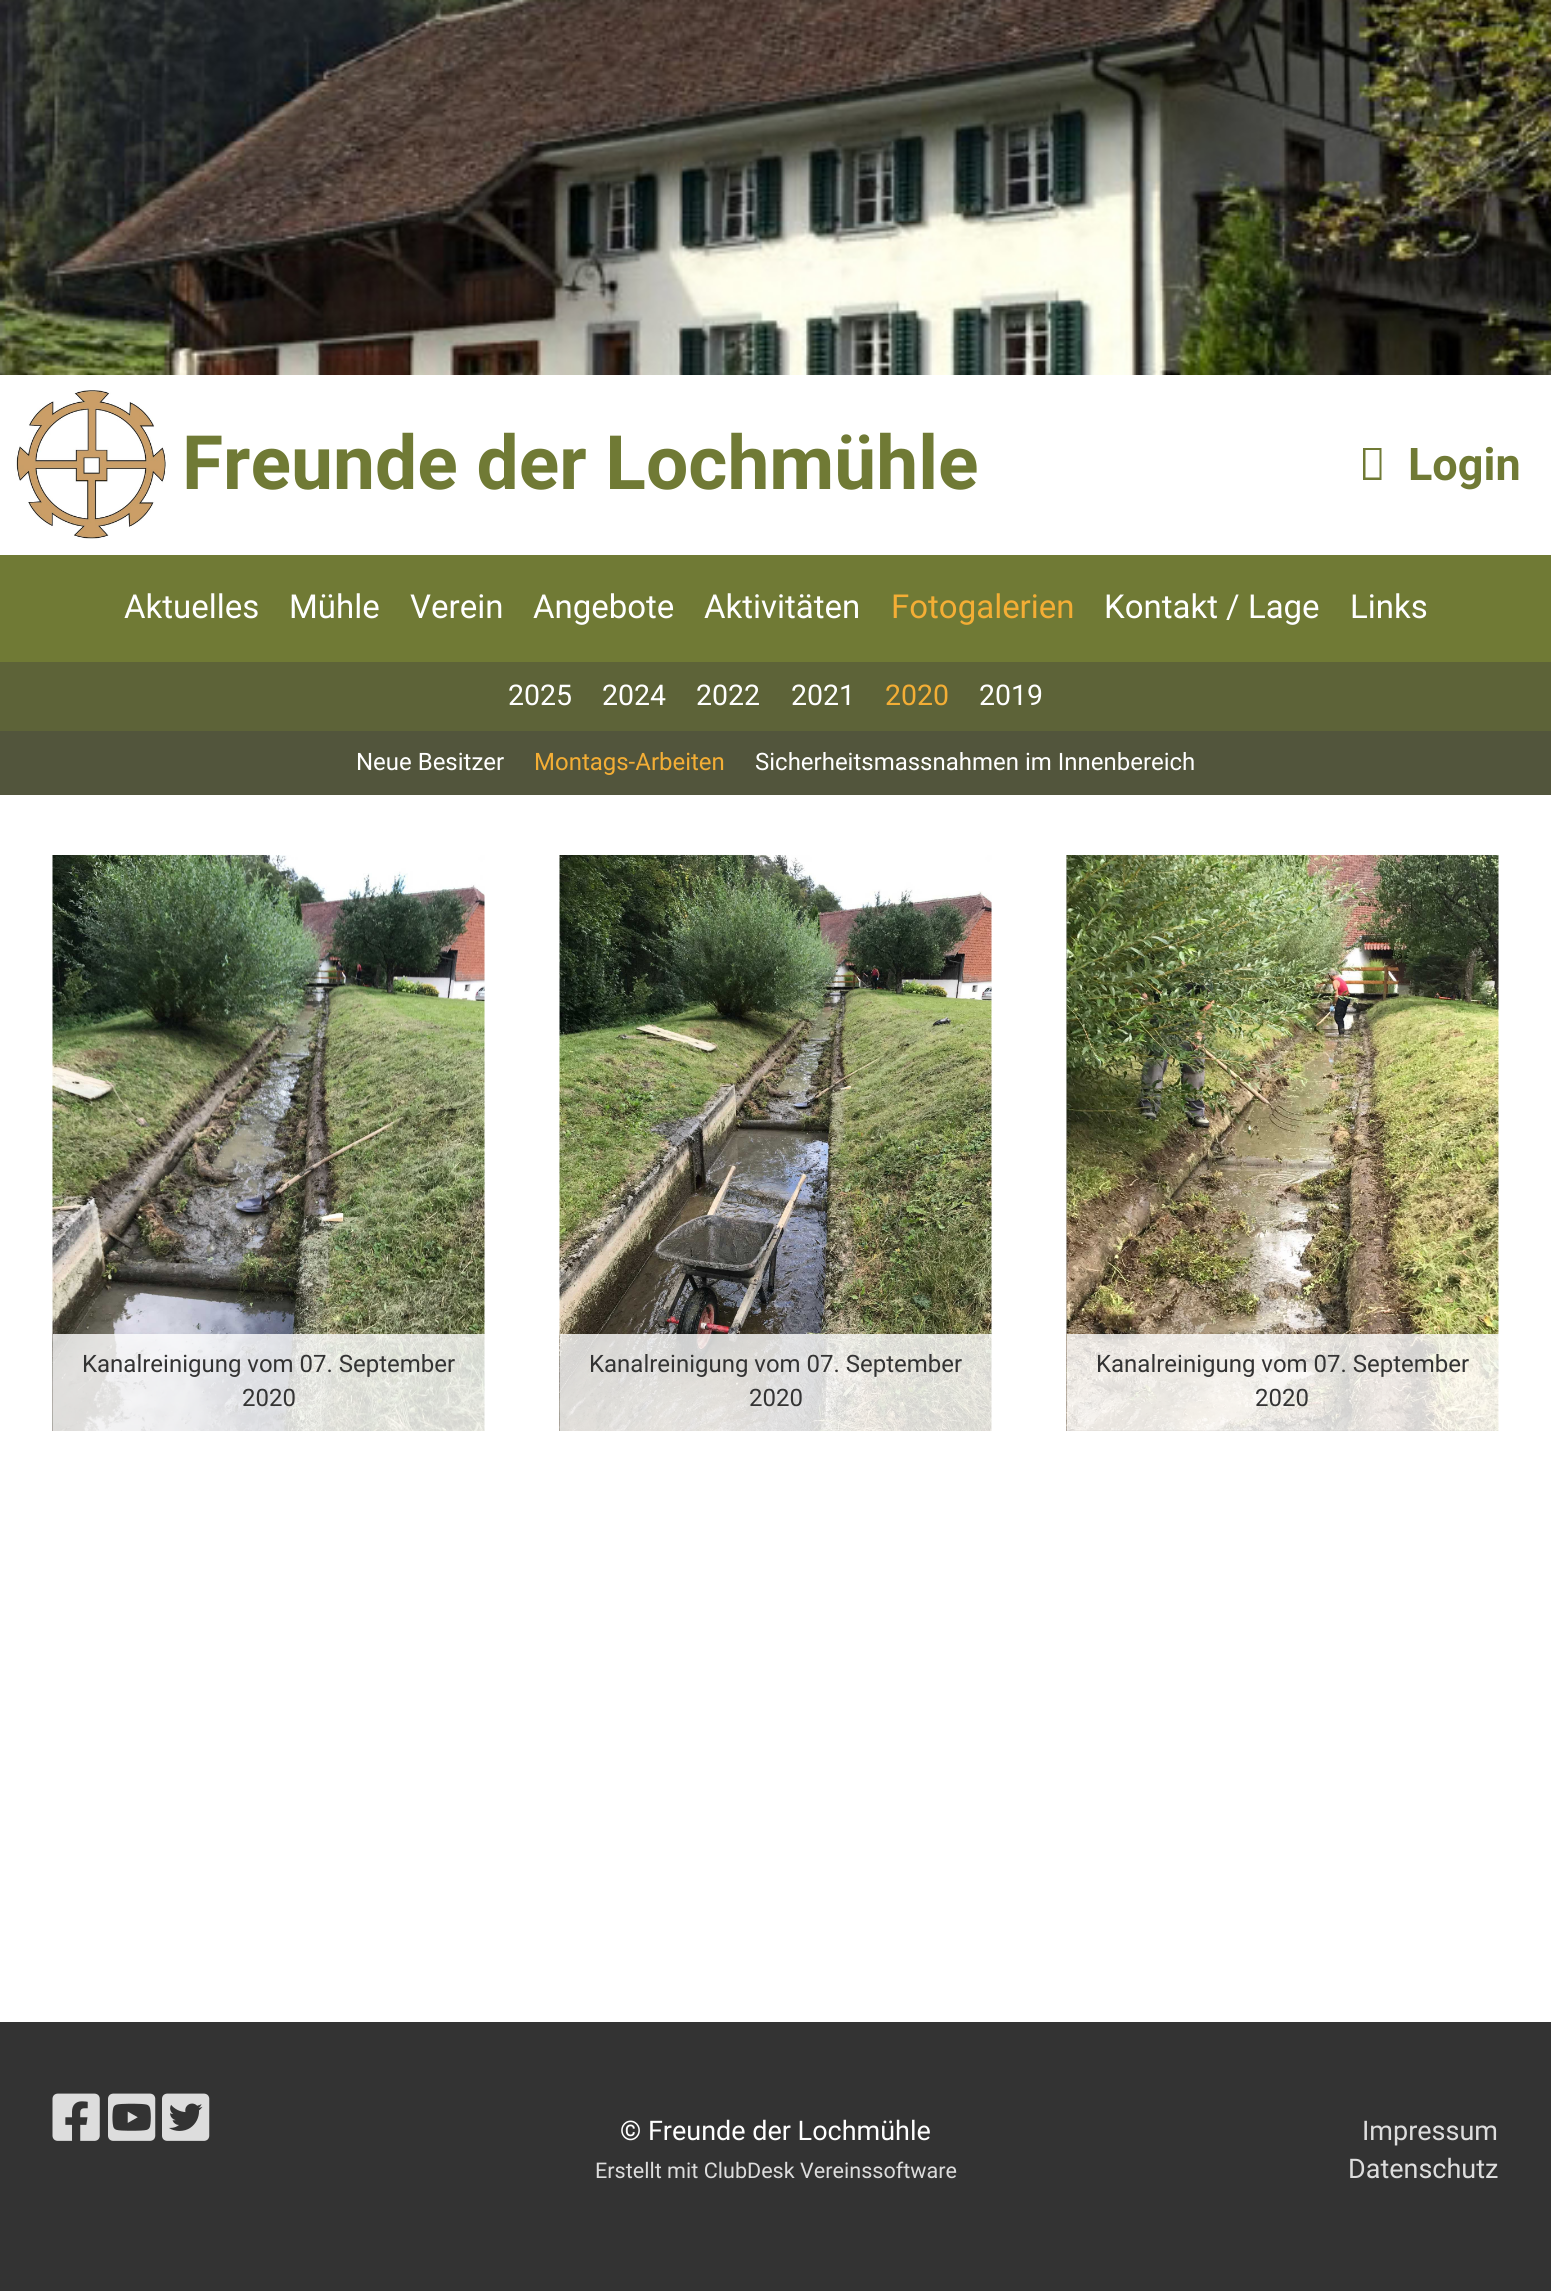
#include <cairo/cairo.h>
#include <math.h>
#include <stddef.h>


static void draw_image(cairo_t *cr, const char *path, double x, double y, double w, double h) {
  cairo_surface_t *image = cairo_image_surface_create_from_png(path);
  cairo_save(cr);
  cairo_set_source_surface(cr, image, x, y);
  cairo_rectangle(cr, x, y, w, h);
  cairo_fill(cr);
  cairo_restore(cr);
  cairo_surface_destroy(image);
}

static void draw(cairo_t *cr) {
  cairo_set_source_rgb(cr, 1, 1, 1);
  cairo_paint(cr);
  draw_image(cr, "images/1.png", 0, 0, 1551, 375);
  draw_image(cr, "images/2.png", 15, 390, 151, 149);
  cairo_set_source_rgb(cr, 112 / 255.0, 122 / 255.0, 53 / 255.0);
  cairo_new_path(cr);
  cairo_move_to(cr, 1363, 480);
  cairo_line_to(cr, 1363, 448);
  cairo_line_to(cr, 1381.5, 448);
  cairo_line_to(cr, 1381.5, 480);
  cairo_close_path(cr);
  cairo_move_to(cr, 1365.5, 477.5);
  cairo_line_to(cr, 1379.5, 477.5);
  cairo_line_to(cr, 1379.5, 450);
  cairo_line_to(cr, 1365.5, 450);
  cairo_close_path(cr);
  cairo_fill(cr);
  cairo_rectangle(cr, 0, 555, 1551, 107);
  cairo_fill(cr);
  cairo_set_source_rgb(cr, 93 / 255.0, 99 / 255.0, 56 / 255.0);
  cairo_rectangle(cr, 0, 662, 1551, 69);
  cairo_fill(cr);
  cairo_set_source_rgb(cr, 82 / 255.0, 85 / 255.0, 60 / 255.0);
  cairo_rectangle(cr, 0, 731, 1551, 64);
  cairo_fill(cr);
  draw_image(cr, "images/3.png", 52, 855, 433, 576);
  cairo_set_source_rgba(cr, 1, 1, 1, 0.8);
  cairo_rectangle(cr, 53, 1334, 432, 97);
  cairo_fill(cr);
  draw_image(cr, "images/4.png", 559, 855, 433, 576);
  cairo_rectangle(cr, 560, 1334, 432, 97);
  cairo_fill(cr);
  draw_image(cr, "images/5.png", 1066, 855, 433, 576);
  cairo_rectangle(cr, 1067, 1334, 432, 97);
  cairo_fill(cr);
  cairo_set_source_rgb(cr, 51 / 255.0, 51 / 255.0, 51 / 255.0);
  cairo_rectangle(cr, 0, 2022, 1551, 269);
  cairo_fill(cr);
  draw_image(cr, "images/6.png", 52, 2093, 48, 48);
  draw_image(cr, "images/7.png", 108, 2093, 48, 48);
  draw_image(cr, "images/8.png", 162, 2093, 48, 48);
  cairo_select_font_face(cr, "Roboto", CAIRO_FONT_SLANT_NORMAL, CAIRO_FONT_WEIGHT_BOLD);
  cairo_set_font_size(cr, 75);
  cairo_set_source_rgb(cr, 112 / 255.0, 122 / 255.0, 53 / 255.0);
  cairo_move_to(cr, 182, 489);
  cairo_show_text(cr, "Freunde der Lochmühle");
  cairo_set_font_size(cr, 45);
  cairo_move_to(cr, 1408, 480);
  cairo_show_text(cr, "Login");
  cairo_select_font_face(cr, "Roboto", CAIRO_FONT_SLANT_NORMAL, CAIRO_FONT_WEIGHT_NORMAL);
  cairo_set_font_size(cr, 33);
  cairo_set_source_rgb(cr, 1, 1, 1);
  cairo_move_to(cr, 124, 618);
  cairo_show_text(cr, "Aktuelles");
  cairo_move_to(cr, 289, 618);
  cairo_show_text(cr, "Mühle");
  cairo_move_to(cr, 410, 618);
  cairo_show_text(cr, "Verein");
  cairo_move_to(cr, 533, 618);
  cairo_show_text(cr, "Angebote");
  cairo_move_to(cr, 704, 618);
  cairo_show_text(cr, "Aktivitäten");
  cairo_set_source_rgb(cr, 244 / 255.0, 174 / 255.0, 53 / 255.0);
  cairo_move_to(cr, 891, 618);
  cairo_show_text(cr, "Fotogalerien");
  cairo_set_source_rgb(cr, 1, 1, 1);
  cairo_move_to(cr, 1104, 618);
  cairo_show_text(cr, "Kontakt / Lage");
  cairo_move_to(cr, 1350, 618);
  cairo_show_text(cr, "Links");
  cairo_set_font_size(cr, 28.5);
  cairo_move_to(cr, 508, 705);
  cairo_show_text(cr, "2025");
  cairo_move_to(cr, 602, 705);
  cairo_show_text(cr, "2024");
  cairo_move_to(cr, 696, 705);
  cairo_show_text(cr, "2022");
  cairo_move_to(cr, 791, 705);
  cairo_show_text(cr, "2021");
  cairo_set_source_rgb(cr, 244 / 255.0, 174 / 255.0, 53 / 255.0);
  cairo_move_to(cr, 885, 705);
  cairo_show_text(cr, "2020");
  cairo_set_source_rgb(cr, 1, 1, 1);
  cairo_move_to(cr, 979, 705);
  cairo_show_text(cr, "2019");
  cairo_set_font_size(cr, 24);
  cairo_move_to(cr, 356, 770);
  cairo_show_text(cr, "Neue Besitzer");
  cairo_set_source_rgb(cr, 244 / 255.0, 174 / 255.0, 53 / 255.0);
  cairo_move_to(cr, 534, 770);
  cairo_show_text(cr, "Montags-Arbeiten");
  cairo_set_source_rgb(cr, 1, 1, 1);
  cairo_move_to(cr, 755, 770);
  cairo_show_text(cr, "Sicherheitsmassnahmen im Innenbereich");
  cairo_set_source_rgb(cr, 51 / 255.0, 51 / 255.0, 51 / 255.0);
  cairo_move_to(cr, 82, 1372);
  cairo_show_text(cr, "Kanalreinigung vom 07. September");
  cairo_move_to(cr, 242, 1406);
  cairo_show_text(cr, "2020");
  cairo_move_to(cr, 589, 1372);
  cairo_show_text(cr, "Kanalreinigung vom 07. September");
  cairo_move_to(cr, 749, 1406);
  cairo_show_text(cr, "2020");
  cairo_move_to(cr, 1096, 1372);
  cairo_show_text(cr, "Kanalreinigung vom 07. September");
  cairo_move_to(cr, 1255, 1406);
  cairo_show_text(cr, "2020");
  cairo_set_font_size(cr, 27);
  cairo_set_source_rgb(cr, 1, 1, 1);
  cairo_move_to(cr, 620, 2140);
  cairo_show_text(cr, "© Freunde der Lochmühle");
  cairo_set_font_size(cr, 21.6);
  cairo_set_source_rgb(cr, 221 / 255.0, 221 / 255.0, 221 / 255.0);
  cairo_move_to(cr, 595, 2178);
  cairo_show_text(cr, "Erstellt mit ClubDesk Vereinssoftware");
  cairo_set_font_size(cr, 27);
  cairo_move_to(cr, 1362, 2140);
  cairo_show_text(cr, "Impressum");
  cairo_move_to(cr, 1348, 2178);
  cairo_show_text(cr, "Datenschutz");
}

int main(void) {
  cairo_surface_t *surface = cairo_image_surface_create(CAIRO_FORMAT_RGB24, 1551, 2291);
  cairo_t *cr = cairo_create(surface);
  cairo_font_options_t *options = cairo_font_options_create();
  cairo_font_options_set_hint_metrics(options, CAIRO_HINT_METRICS_OFF);
  cairo_font_options_set_hint_style(options, CAIRO_HINT_STYLE_NONE);
  cairo_set_font_options(cr, options);
  cairo_set_miter_limit(cr, 4);
  draw(cr);
  cairo_surface_write_to_png(surface, "out.png");
  cairo_font_options_destroy(options);
  cairo_destroy(cr);
  cairo_surface_destroy(surface);
  return 0;
}
